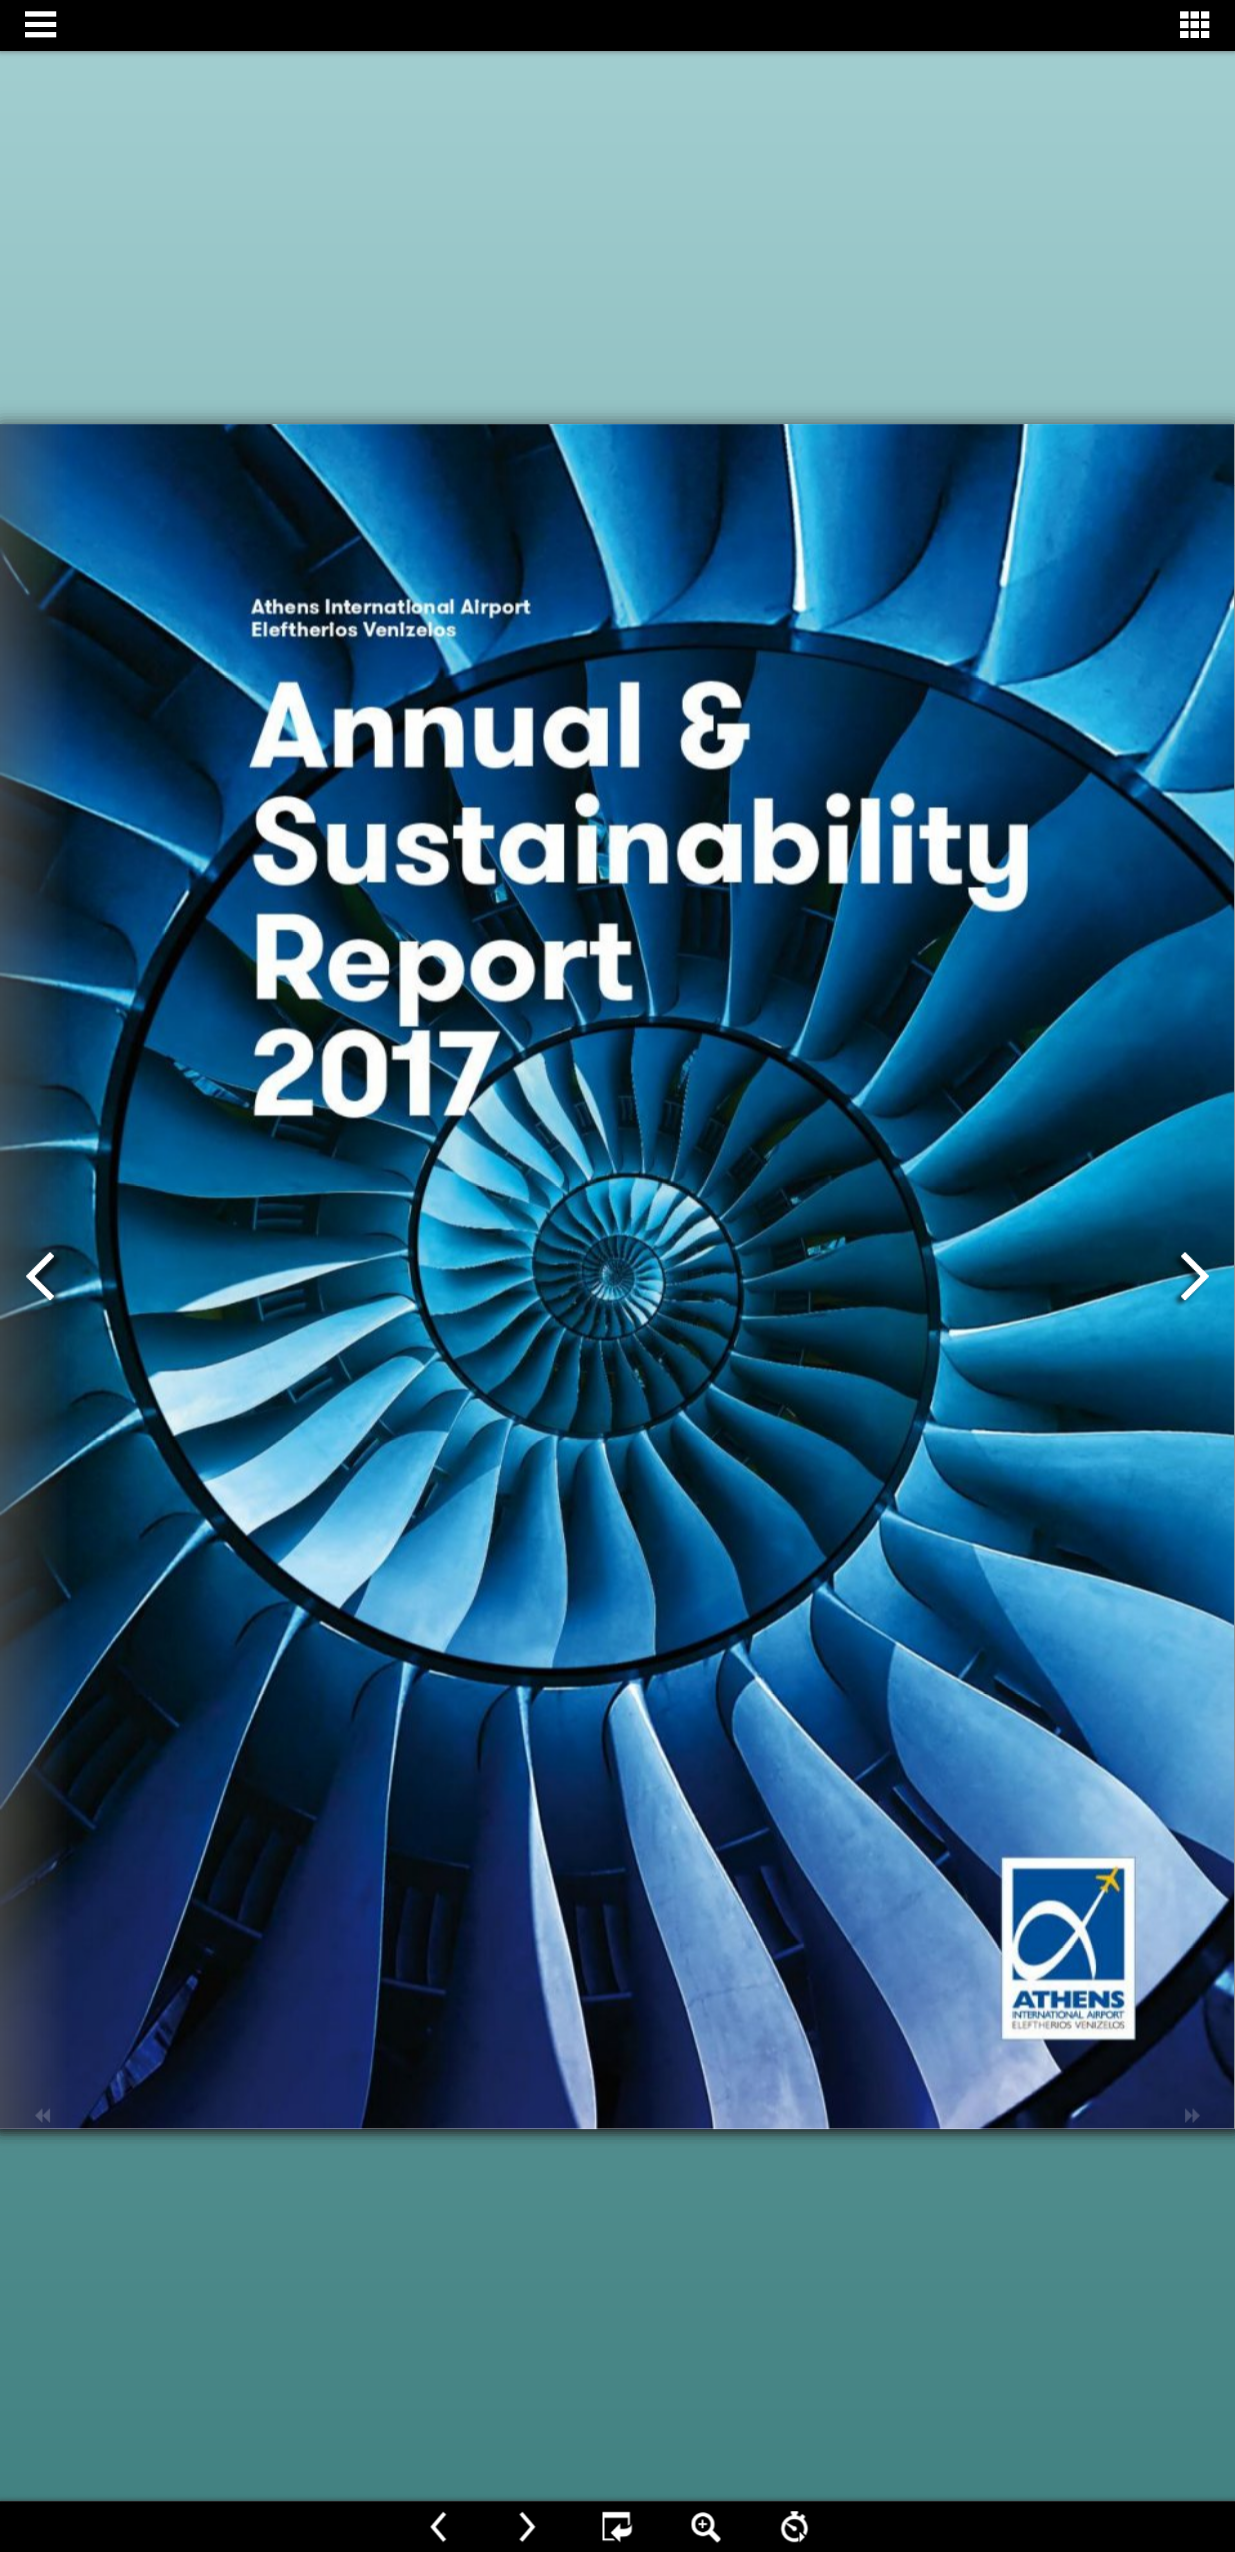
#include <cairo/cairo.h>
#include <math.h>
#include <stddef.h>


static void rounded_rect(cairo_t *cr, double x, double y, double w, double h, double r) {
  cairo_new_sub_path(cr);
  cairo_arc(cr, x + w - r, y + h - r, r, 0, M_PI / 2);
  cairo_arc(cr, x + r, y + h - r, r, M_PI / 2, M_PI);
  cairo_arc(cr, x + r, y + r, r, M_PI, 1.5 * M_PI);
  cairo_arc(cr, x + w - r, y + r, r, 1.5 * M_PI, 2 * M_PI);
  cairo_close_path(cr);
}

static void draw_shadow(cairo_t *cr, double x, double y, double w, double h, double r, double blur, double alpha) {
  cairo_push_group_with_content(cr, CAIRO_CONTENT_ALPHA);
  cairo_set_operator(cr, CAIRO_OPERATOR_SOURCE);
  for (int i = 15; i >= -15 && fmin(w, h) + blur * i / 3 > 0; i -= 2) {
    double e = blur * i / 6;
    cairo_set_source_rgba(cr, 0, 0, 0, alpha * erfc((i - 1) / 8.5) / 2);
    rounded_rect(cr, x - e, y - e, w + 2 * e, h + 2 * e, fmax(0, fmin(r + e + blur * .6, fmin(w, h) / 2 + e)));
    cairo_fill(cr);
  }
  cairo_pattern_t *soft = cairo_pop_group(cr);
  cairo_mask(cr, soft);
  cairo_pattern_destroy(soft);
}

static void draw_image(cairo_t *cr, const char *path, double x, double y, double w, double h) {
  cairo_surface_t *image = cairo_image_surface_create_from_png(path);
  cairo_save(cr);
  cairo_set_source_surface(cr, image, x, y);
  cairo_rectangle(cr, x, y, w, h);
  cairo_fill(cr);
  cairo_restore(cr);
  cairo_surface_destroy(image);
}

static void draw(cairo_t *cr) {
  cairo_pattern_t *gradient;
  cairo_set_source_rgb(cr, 1, 1, 1);
  cairo_paint(cr);
  gradient = cairo_pattern_create_linear(617, 0, 618, 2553);
  cairo_pattern_add_color_stop_rgba(gradient, 0, 163 / 255.0, 207 / 255.0, 209 / 255.0, 1);
  cairo_pattern_add_color_stop_rgba(gradient, 1, 64 / 255.0, 128 / 255.0, 128 / 255.0, 1);
  cairo_set_source(cr, gradient);
  cairo_pattern_destroy(gradient);
  cairo_rectangle(cr, 0, 51, 1235, 2450);
  cairo_fill(cr);
  cairo_set_source_rgb(cr, 40 / 255.0, 0, 0);
  draw_shadow(cr, 0, 0, 1235, 51, 0, 3, 0.5);
  cairo_set_source_rgb(cr, 0, 0, 0);
  cairo_rectangle(cr, 0, 0, 1235, 51);
  cairo_fill(cr);
  draw_image(cr, "images/1.png", 25, 11, 32, 27);
  draw_image(cr, "images/2.png", 1180, 11, 30, 27);
  cairo_set_source_rgb(cr, 40 / 255.0, 40 / 255.0, 40 / 255.0);
  draw_shadow(cr, 0, 424, 1235, 1705, 0, 9.5, 0.7);
  cairo_save(cr);
  cairo_rectangle(cr, 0, 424, 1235, 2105);
  cairo_clip(cr);
  draw_shadow(cr, 0, 424, 1235, 1705, 0, 6, 0.5);
  draw_shadow(cr, 0, 424, 1235, 1705, 0, 6, 0.5);
  draw_shadow(cr, 0, 424, 1235, 1705, 0, 6, 0.5);
  draw_shadow(cr, 0, 424, 1235, 1705, 0, 6, 0.5);
  cairo_restore(cr);
  draw_image(cr, "images/3.png", 0, 2129, 1235, 1);
  cairo_set_source_rgb(cr, 245 / 255.0, 240 / 255.0, 245 / 255.0);
  cairo_rectangle(cr, 0, 424, 1234, 1705);
  cairo_fill(cr);
  draw_image(cr, "images/5.png", 0, 2129, 1235, 1);
  draw_image(cr, "images/4.png", 0, 424, 1235, 1706);
  gradient = cairo_pattern_create_linear(0, 424, 69, 424);
  cairo_pattern_add_color_stop_rgba(gradient, 0, 93 / 255.0, 93 / 255.0, 93 / 255.0, 0.6);
  cairo_pattern_add_color_stop_rgba(gradient, 1, 93 / 255.0, 93 / 255.0, 93 / 255.0, 0);
  cairo_set_source(cr, gradient);
  cairo_pattern_destroy(gradient);
  cairo_rectangle(cr, 0, 424, 67, 1705);
  cairo_fill(cr);
  draw_image(cr, "images/6.png", 1234, 424, 1, 62);
  cairo_set_source_rgb(cr, 146 / 255.0, 146 / 255.0, 146 / 255.0);
  cairo_rectangle(cr, 1234, 486, 1, 1581);
  cairo_fill(cr);
  cairo_set_source_rgb(cr, 148 / 255.0, 148 / 255.0, 148 / 255.0);
  cairo_rectangle(cr, 1234, 2067, 1, 62);
  cairo_fill(cr);
  draw_image(cr, "images/7.png", 26, 1252, 36, 54);
  draw_image(cr, "images/8.png", 1172, 1252, 37, 56);
  draw_image(cr, "images/9.png", 35, 2108, 16, 16);
  draw_image(cr, "images/10.png", 1185, 2108, 15, 16);
  cairo_set_source_rgb(cr, 40 / 255.0, 0, 0);
  draw_shadow(cr, 0, 2501, 1235, 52, 0, 3, 0.5);
  cairo_set_source_rgb(cr, 0, 0, 0);
  cairo_rectangle(cr, 0, 2502, 1235, 50);
  cairo_fill(cr);
  cairo_set_source_rgb(cr, 30 / 255.0, 30 / 255.0, 30 / 255.0);
  cairo_rectangle(cr, 0, 2501, 1235, 1);
  cairo_fill(cr);
  draw_image(cr, "images/11.png", 430, 2511, 17, 32);
  draw_image(cr, "images/12.png", 519, 2511, 17, 32);
  draw_image(cr, "images/13.png", 602, 2511, 31, 32);
  draw_image(cr, "images/14.png", 691, 2512, 30, 32);
  draw_image(cr, "images/15.png", 780, 2511, 29, 32);
}

int main(void) {
  cairo_surface_t *surface = cairo_image_surface_create(CAIRO_FORMAT_RGB24, 1235, 2552);
  cairo_t *cr = cairo_create(surface);
  cairo_font_options_t *options = cairo_font_options_create();
  cairo_font_options_set_hint_metrics(options, CAIRO_HINT_METRICS_OFF);
  cairo_font_options_set_hint_style(options, CAIRO_HINT_STYLE_NONE);
  cairo_set_font_options(cr, options);
  cairo_set_miter_limit(cr, 4);
  draw(cr);
  cairo_surface_write_to_png(surface, "out.png");
  cairo_font_options_destroy(options);
  cairo_destroy(cr);
  cairo_surface_destroy(surface);
  return 0;
}
